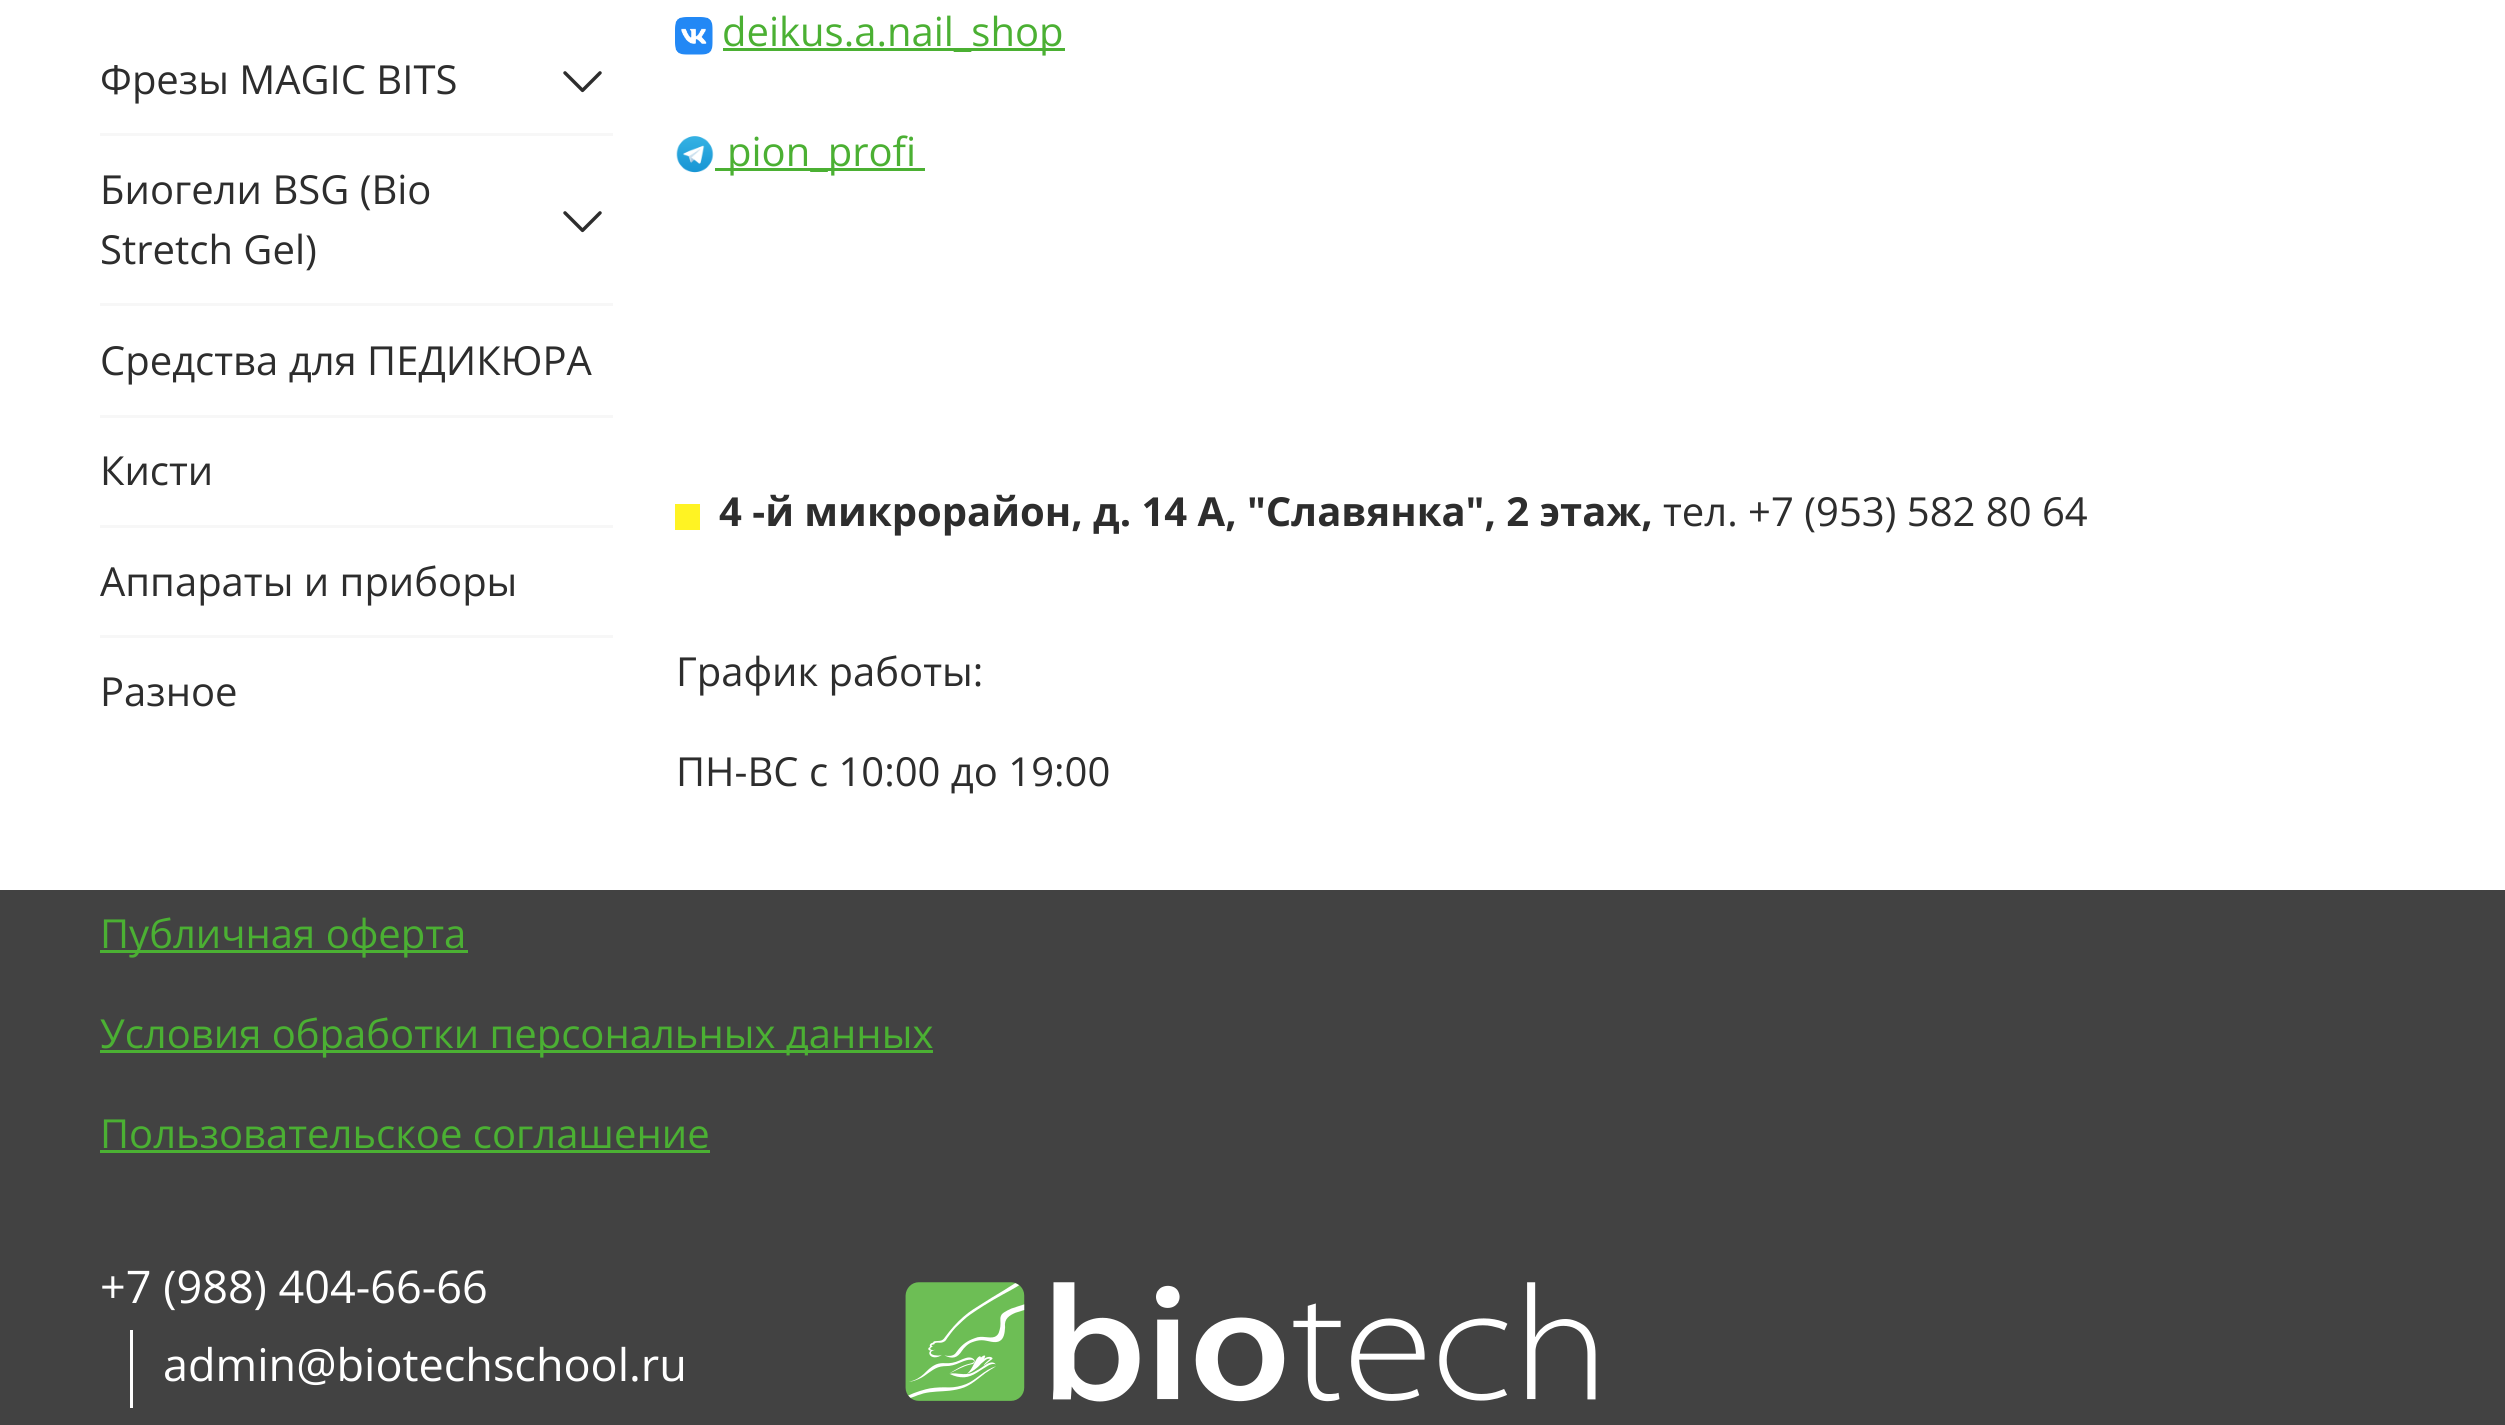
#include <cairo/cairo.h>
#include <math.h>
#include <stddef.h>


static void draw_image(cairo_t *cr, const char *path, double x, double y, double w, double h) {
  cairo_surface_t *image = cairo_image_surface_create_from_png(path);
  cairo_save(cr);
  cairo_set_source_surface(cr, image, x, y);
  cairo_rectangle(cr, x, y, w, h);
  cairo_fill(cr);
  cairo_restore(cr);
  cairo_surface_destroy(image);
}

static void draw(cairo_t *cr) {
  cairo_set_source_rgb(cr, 1, 1, 1);
  cairo_paint(cr);
  cairo_set_source_rgb(cr, 247 / 255.0, 247 / 255.0, 247 / 255.0);
  cairo_rectangle(cr, 100, 133, 513, 3);
  cairo_fill(cr);
  draw_image(cr, "images/1.png", 563, 71, 39, 22);
  cairo_rectangle(cr, 100, 303, 513, 3);
  cairo_fill(cr);
  draw_image(cr, "images/1.png", 563, 211, 39, 22);
  cairo_rectangle(cr, 100, 415, 513, 3);
  cairo_fill(cr);
  cairo_rectangle(cr, 100, 525, 513, 3);
  cairo_fill(cr);
  cairo_rectangle(cr, 100, 635, 513, 3);
  cairo_fill(cr);
  draw_image(cr, "images/2.png", 675, 17, 38, 38);
  cairo_set_source_rgb(cr, 75 / 255.0, 176 / 255.0, 51 / 255.0);
  cairo_rectangle(cr, 723, 48, 342, 3);
  cairo_fill(cr);
  draw_image(cr, "images/3.png", 676, 136, 38, 37);
  cairo_rectangle(cr, 715, 168, 210, 3);
  cairo_fill(cr);
  cairo_set_source_rgb(cr, 1, 243 / 255.0, 35 / 255.0);
  cairo_rectangle(cr, 675, 504, 25, 26);
  cairo_fill(cr);
  cairo_set_source_rgb(cr, 66 / 255.0, 66 / 255.0, 66 / 255.0);
  cairo_rectangle(cr, 0, 890, 2505, 535);
  cairo_fill(cr);
  cairo_set_source_rgb(cr, 75 / 255.0, 176 / 255.0, 51 / 255.0);
  cairo_rectangle(cr, 100, 950, 368, 3);
  cairo_fill(cr);
  cairo_rectangle(cr, 100, 1050, 833, 3);
  cairo_fill(cr);
  cairo_rectangle(cr, 100, 1150, 610, 3);
  cairo_fill(cr);
  cairo_set_source_rgb(cr, 1, 1, 1);
  cairo_rectangle(cr, 130, 1330, 3, 78);
  cairo_fill(cr);
  draw_image(cr, "images/4.png", 905, 1282, 691, 120);
  cairo_select_font_face(cr, "Open Sans", CAIRO_FONT_SLANT_NORMAL, CAIRO_FONT_WEIGHT_NORMAL);
  cairo_set_font_size(cr, 40);
  cairo_set_source_rgb(cr, 45 / 255.0, 45 / 255.0, 45 / 255.0);
  cairo_move_to(cr, 100, 94);
  cairo_show_text(cr, "Фрезы MAGIC BITS");
  cairo_move_to(cr, 100, 204);
  cairo_show_text(cr, "Биогели BSG (Bio");
  cairo_move_to(cr, 100, 264);
  cairo_show_text(cr, "Stretch Gel)");
  cairo_move_to(cr, 100, 375);
  cairo_show_text(cr, "Средства для ПЕДИКЮРА");
  cairo_move_to(cr, 100, 485);
  cairo_show_text(cr, "Кисти");
  cairo_move_to(cr, 100, 596);
  cairo_show_text(cr, "Аппараты и приборы");
  cairo_move_to(cr, 100, 706);
  cairo_show_text(cr, "Разное");
  cairo_set_source_rgb(cr, 75 / 255.0, 176 / 255.0, 51 / 255.0);
  cairo_move_to(cr, 722, 46);
  cairo_show_text(cr, "deikus.a.nail_shop");
  cairo_move_to(cr, 727, 166);
  cairo_show_text(cr, "pion_profi");
  cairo_select_font_face(cr, "Open Sans", CAIRO_FONT_SLANT_NORMAL, CAIRO_FONT_WEIGHT_BOLD);
  cairo_set_source_rgb(cr, 45 / 255.0, 45 / 255.0, 45 / 255.0);
  cairo_move_to(cr, 719, 526);
  cairo_show_text(cr, "4 -й микрорайон, д. 14 А, \"Славянка\", 2 этаж,");
  cairo_select_font_face(cr, "Open Sans", CAIRO_FONT_SLANT_NORMAL, CAIRO_FONT_WEIGHT_NORMAL);
  cairo_move_to(cr, 1663, 526);
  cairo_show_text(cr, "тел. +7 (953) 582 80 64");
  cairo_move_to(cr, 676, 686);
  cairo_show_text(cr, "График работы:");
  cairo_move_to(cr, 676, 786);
  cairo_show_text(cr, "ПН-ВС с 10:00 до 19:00");
  cairo_set_source_rgb(cr, 75 / 255.0, 176 / 255.0, 51 / 255.0);
  cairo_move_to(cr, 100, 948);
  cairo_show_text(cr, "Публичная оферта");
  cairo_move_to(cr, 100, 1048);
  cairo_show_text(cr, "Условия обработки персональных данных");
  cairo_move_to(cr, 100, 1148);
  cairo_show_text(cr, "Пользовательское соглашение");
  cairo_set_font_size(cr, 45);
  cairo_set_source_rgb(cr, 1, 1, 1);
  cairo_move_to(cr, 100, 1303);
  cairo_show_text(cr, "+7 (988) 404-66-66");
  cairo_move_to(cr, 163, 1381);
  cairo_show_text(cr, "admin@biotechschool.ru");
}

int main(void) {
  cairo_surface_t *surface = cairo_image_surface_create(CAIRO_FORMAT_RGB24, 2505, 1425);
  cairo_t *cr = cairo_create(surface);
  cairo_font_options_t *options = cairo_font_options_create();
  cairo_font_options_set_hint_metrics(options, CAIRO_HINT_METRICS_OFF);
  cairo_font_options_set_hint_style(options, CAIRO_HINT_STYLE_NONE);
  cairo_set_font_options(cr, options);
  cairo_set_miter_limit(cr, 4);
  draw(cr);
  cairo_surface_write_to_png(surface, "out.png");
  cairo_font_options_destroy(options);
  cairo_destroy(cr);
  cairo_surface_destroy(surface);
  return 0;
}
